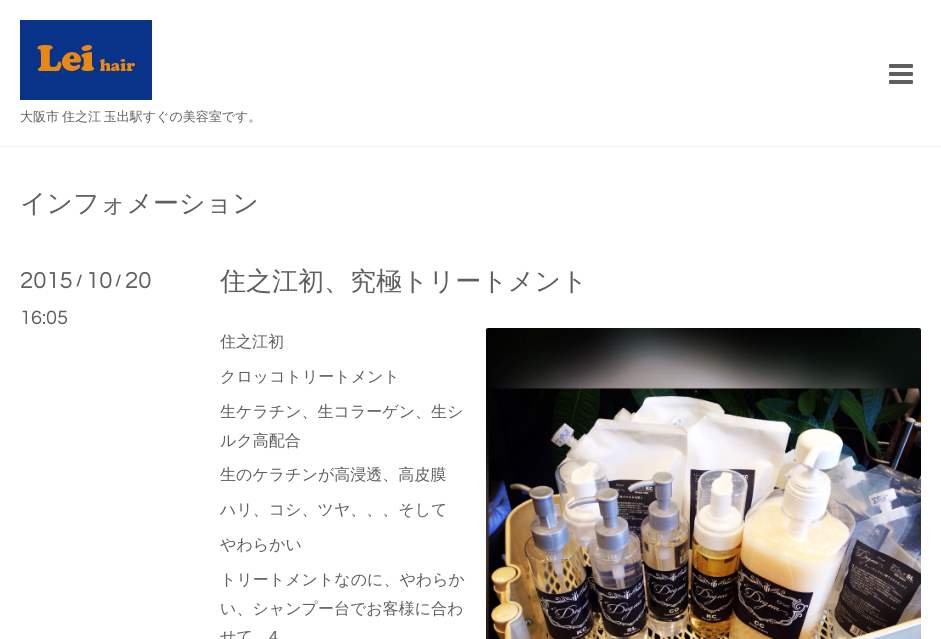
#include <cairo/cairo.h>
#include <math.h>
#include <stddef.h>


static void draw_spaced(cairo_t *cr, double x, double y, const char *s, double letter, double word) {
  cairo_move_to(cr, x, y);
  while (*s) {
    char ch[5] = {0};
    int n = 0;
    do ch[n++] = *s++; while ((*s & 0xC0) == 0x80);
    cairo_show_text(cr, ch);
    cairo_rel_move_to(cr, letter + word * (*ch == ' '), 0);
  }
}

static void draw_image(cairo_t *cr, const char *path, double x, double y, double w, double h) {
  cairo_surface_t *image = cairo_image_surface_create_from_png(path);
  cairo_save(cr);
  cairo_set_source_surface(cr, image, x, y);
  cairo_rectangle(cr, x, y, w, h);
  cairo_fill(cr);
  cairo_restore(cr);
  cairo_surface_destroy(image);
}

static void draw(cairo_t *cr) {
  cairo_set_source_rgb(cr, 1, 1, 1);
  cairo_paint(cr);
  cairo_set_source_rgb(cr, 242 / 255.0, 242 / 255.0, 242 / 255.0);
  cairo_rectangle(cr, 0, 146, 941, 1);
  cairo_fill(cr);
  draw_image(cr, "images/1.png", 889, 64, 24, 20);
  draw_image(cr, "images/2.png", 20, 20, 132, 80);
  draw_image(cr, "images/3.png", 486, 328, 435, 311);
  cairo_select_font_face(cr, "WenQuanYi Zen Hei Medium", CAIRO_FONT_SLANT_NORMAL, CAIRO_FONT_WEIGHT_NORMAL);
  cairo_set_font_size(cr, 13);
  cairo_set_source_rgb(cr, 95 / 255.0, 95 / 255.0, 95 / 255.0);
  draw_spaced(cr, 20, 121, "大阪市 住之江 玉出駅すぐの美容室です。", 0, -1);
  cairo_set_font_size(cr, 26);
  cairo_move_to(cr, 20, 212);
  cairo_show_text(cr, "インフォメーション");
  cairo_select_font_face(cr, "Questrial", CAIRO_FONT_SLANT_NORMAL, CAIRO_FONT_WEIGHT_NORMAL);
  cairo_set_font_size(cr, 24);
  cairo_move_to(cr, 20, 288);
  cairo_show_text(cr, "2015");
  cairo_select_font_face(cr, "Questrial", CAIRO_FONT_SLANT_NORMAL, CAIRO_FONT_WEIGHT_BOLD);
  cairo_set_font_size(cr, 16);
  cairo_move_to(cr, 76, 286);
  cairo_show_text(cr, "/");
  cairo_select_font_face(cr, "Questrial", CAIRO_FONT_SLANT_NORMAL, CAIRO_FONT_WEIGHT_NORMAL);
  cairo_set_font_size(cr, 24);
  cairo_move_to(cr, 86, 288);
  cairo_show_text(cr, "10");
  cairo_select_font_face(cr, "Questrial", CAIRO_FONT_SLANT_NORMAL, CAIRO_FONT_WEIGHT_BOLD);
  cairo_set_font_size(cr, 16);
  cairo_move_to(cr, 115, 286);
  cairo_show_text(cr, "/");
  cairo_select_font_face(cr, "Questrial", CAIRO_FONT_SLANT_NORMAL, CAIRO_FONT_WEIGHT_NORMAL);
  cairo_set_font_size(cr, 24);
  cairo_move_to(cr, 125, 288);
  cairo_show_text(cr, "20");
  cairo_set_font_size(cr, 20);
  cairo_move_to(cr, 20, 324);
  cairo_show_text(cr, "16:05");
  cairo_select_font_face(cr, "WenQuanYi Zen Hei Medium", CAIRO_FONT_SLANT_NORMAL, CAIRO_FONT_WEIGHT_NORMAL);
  cairo_set_font_size(cr, 26);
  cairo_move_to(cr, 220, 290);
  cairo_show_text(cr, "住之江初、究極トリートメント");
  cairo_set_font_size(cr, 16);
  cairo_move_to(cr, 220, 347);
  cairo_show_text(cr, "住之江初");
  cairo_move_to(cr, 220, 382);
  cairo_show_text(cr, "クロッコトリートメント");
  cairo_move_to(cr, 220, 417);
  cairo_show_text(cr, "生ケラチン、生コラーゲン、生シ");
  cairo_move_to(cr, 220, 446);
  cairo_show_text(cr, "ルク高配合");
  cairo_move_to(cr, 220, 480);
  cairo_show_text(cr, "生のケラチンが高浸透、高皮膜");
  cairo_move_to(cr, 220, 515);
  cairo_show_text(cr, "ハリ、コシ、ツヤ、、、そして");
  cairo_move_to(cr, 220, 550);
  cairo_show_text(cr, "やわらかい");
  cairo_move_to(cr, 220, 585);
  cairo_show_text(cr, "トリートメントなのに、やわらか");
  cairo_move_to(cr, 220, 614);
  cairo_show_text(cr, "い、シャンプー台でお客様に合わ");
  cairo_move_to(cr, 220, 642);
  cairo_show_text(cr, "せて");
  cairo_select_font_face(cr, "Liberation Sans", CAIRO_FONT_SLANT_NORMAL, CAIRO_FONT_WEIGHT_NORMAL);
  cairo_move_to(cr, 269, 642);
  cairo_show_text(cr, "4");
}

int main(void) {
  cairo_surface_t *surface = cairo_image_surface_create(CAIRO_FORMAT_RGB24, 941, 639);
  cairo_t *cr = cairo_create(surface);
  cairo_font_options_t *options = cairo_font_options_create();
  cairo_font_options_set_hint_metrics(options, CAIRO_HINT_METRICS_OFF);
  cairo_font_options_set_hint_style(options, CAIRO_HINT_STYLE_NONE);
  cairo_set_font_options(cr, options);
  cairo_set_miter_limit(cr, 4);
  draw(cr);
  cairo_surface_write_to_png(surface, "out.png");
  cairo_font_options_destroy(options);
  cairo_destroy(cr);
  cairo_surface_destroy(surface);
  return 0;
}
